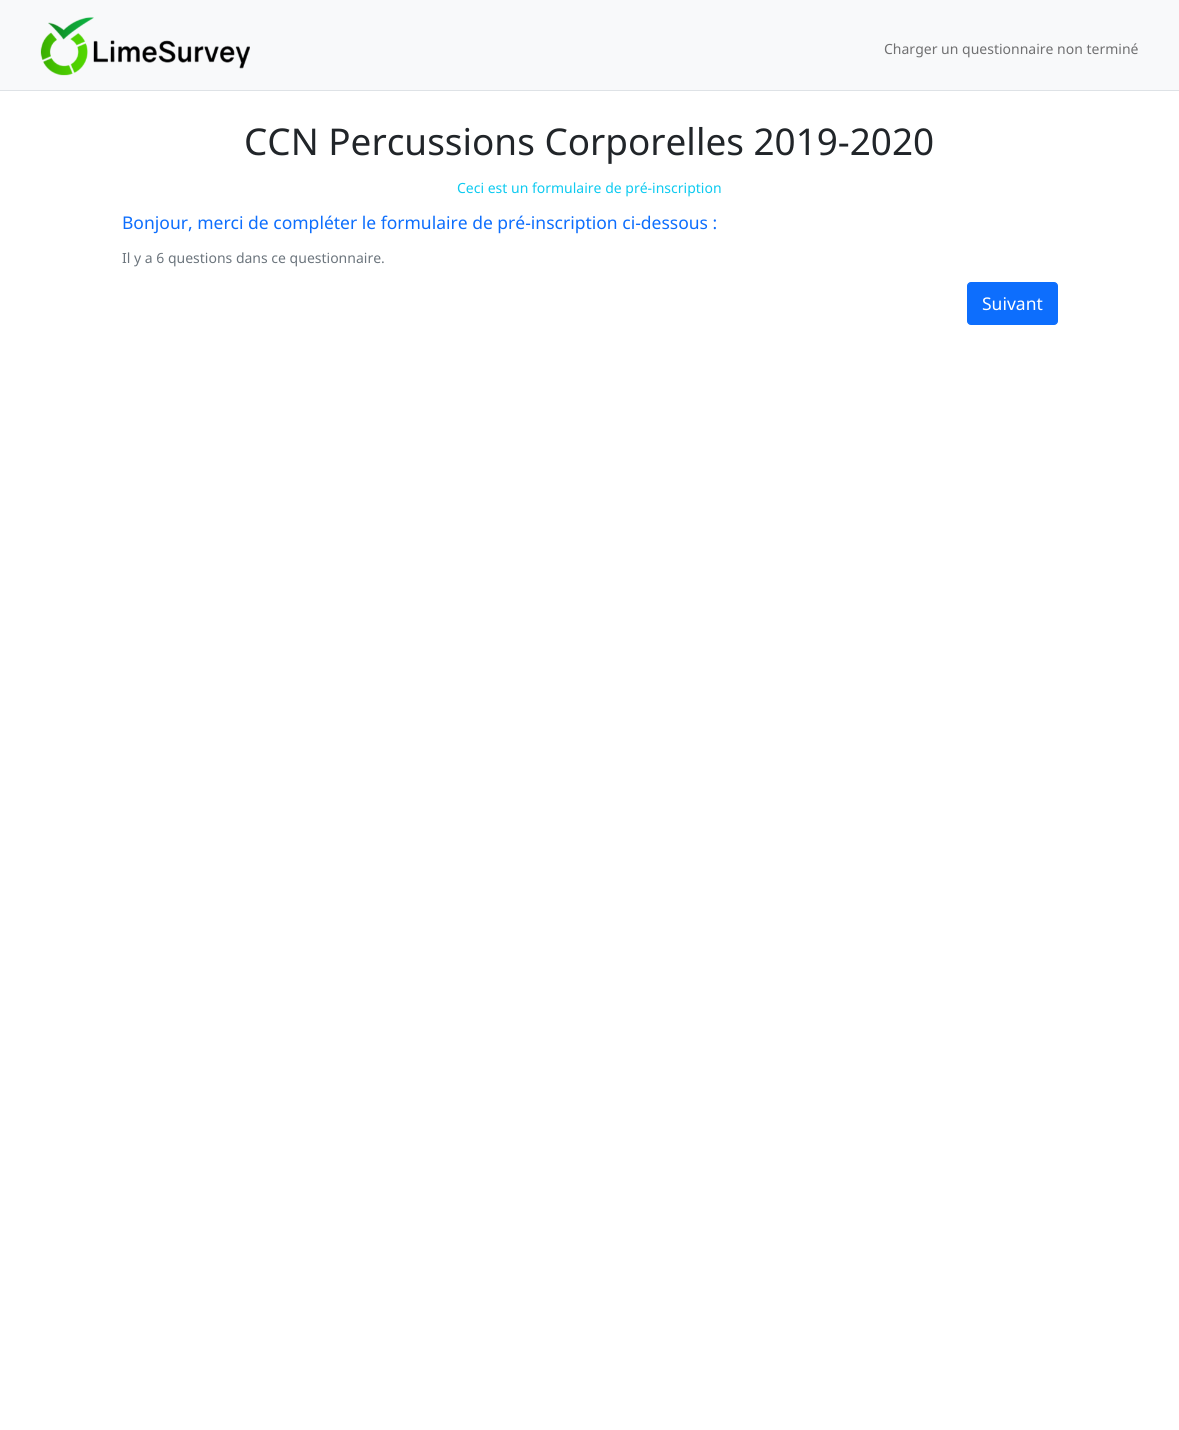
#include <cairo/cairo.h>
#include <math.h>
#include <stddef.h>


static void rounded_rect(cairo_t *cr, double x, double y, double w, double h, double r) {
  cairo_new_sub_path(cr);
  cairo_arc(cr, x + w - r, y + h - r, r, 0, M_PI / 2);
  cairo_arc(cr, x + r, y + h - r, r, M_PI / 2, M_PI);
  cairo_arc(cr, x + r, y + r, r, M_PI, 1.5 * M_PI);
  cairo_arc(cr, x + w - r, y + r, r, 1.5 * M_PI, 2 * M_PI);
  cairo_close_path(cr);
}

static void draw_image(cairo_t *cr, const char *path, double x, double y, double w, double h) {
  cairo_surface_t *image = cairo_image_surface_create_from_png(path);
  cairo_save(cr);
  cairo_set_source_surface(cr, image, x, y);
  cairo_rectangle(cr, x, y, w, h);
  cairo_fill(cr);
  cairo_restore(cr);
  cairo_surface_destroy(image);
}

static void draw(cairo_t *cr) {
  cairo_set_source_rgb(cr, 1, 1, 1);
  cairo_paint(cr);
  cairo_set_source_rgb(cr, 248 / 255.0, 249 / 255.0, 250 / 255.0);
  cairo_rectangle(cr, 0, 0, 1179, 90);
  cairo_fill(cr);
  cairo_set_source_rgb(cr, 222 / 255.0, 226 / 255.0, 230 / 255.0);
  cairo_rectangle(cr, 0, 90, 1179, 1);
  cairo_fill(cr);
  draw_image(cr, "images/1.png", 40, 17, 210, 59);
  cairo_set_source_rgb(cr, 13 / 255.0, 110 / 255.0, 253 / 255.0);
  rounded_rect(cr, 967.5, 282.5, 90, 42, 3.5);
  cairo_fill_preserve(cr);
  cairo_set_line_width(cr, 1);
  cairo_stroke(cr);
  cairo_select_font_face(cr, "Noto Sans", CAIRO_FONT_SLANT_NORMAL, CAIRO_FONT_WEIGHT_NORMAL);
  cairo_set_font_size(cr, 14);
  cairo_set_source_rgb(cr, 112 / 255.0, 112 / 255.0, 113 / 255.0);
  cairo_move_to(cr, 884, 54);
  cairo_show_text(cr, "Charger un questionnaire non terminé");
  cairo_set_font_size(cr, 36.9);
  cairo_set_source_rgb(cr, 33 / 255.0, 37 / 255.0, 41 / 255.0);
  cairo_move_to(cr, 244, 155);
  cairo_show_text(cr, "CCN Percussions Corporelles 2019-2020");
  cairo_set_font_size(cr, 14);
  cairo_set_source_rgb(cr, 13 / 255.0, 202 / 255.0, 240 / 255.0);
  cairo_move_to(cr, 457, 193);
  cairo_show_text(cr, "Ceci est un formulaire de pré-inscription");
  cairo_set_font_size(cr, 17.5);
  cairo_set_source_rgb(cr, 13 / 255.0, 110 / 255.0, 253 / 255.0);
  cairo_move_to(cr, 122, 229);
  cairo_show_text(cr, "Bonjour, merci de compléter le formulaire de pré-inscription ci-dessous :");
  cairo_set_font_size(cr, 14);
  cairo_set_source_rgb(cr, 108 / 255.0, 117 / 255.0, 125 / 255.0);
  cairo_move_to(cr, 122, 263);
  cairo_show_text(cr, "Il y a 6 questions dans ce questionnaire.");
  cairo_set_font_size(cr, 17.5);
  cairo_set_source_rgb(cr, 1, 1, 1);
  cairo_move_to(cr, 982, 310);
  cairo_show_text(cr, "Suivant");
}

int main(void) {
  cairo_surface_t *surface = cairo_image_surface_create(CAIRO_FORMAT_RGB24, 1179, 1430);
  cairo_t *cr = cairo_create(surface);
  cairo_font_options_t *options = cairo_font_options_create();
  cairo_font_options_set_hint_metrics(options, CAIRO_HINT_METRICS_OFF);
  cairo_font_options_set_hint_style(options, CAIRO_HINT_STYLE_NONE);
  cairo_set_font_options(cr, options);
  cairo_set_miter_limit(cr, 4);
  draw(cr);
  cairo_surface_write_to_png(surface, "out.png");
  cairo_font_options_destroy(options);
  cairo_destroy(cr);
  cairo_surface_destroy(surface);
  return 0;
}
